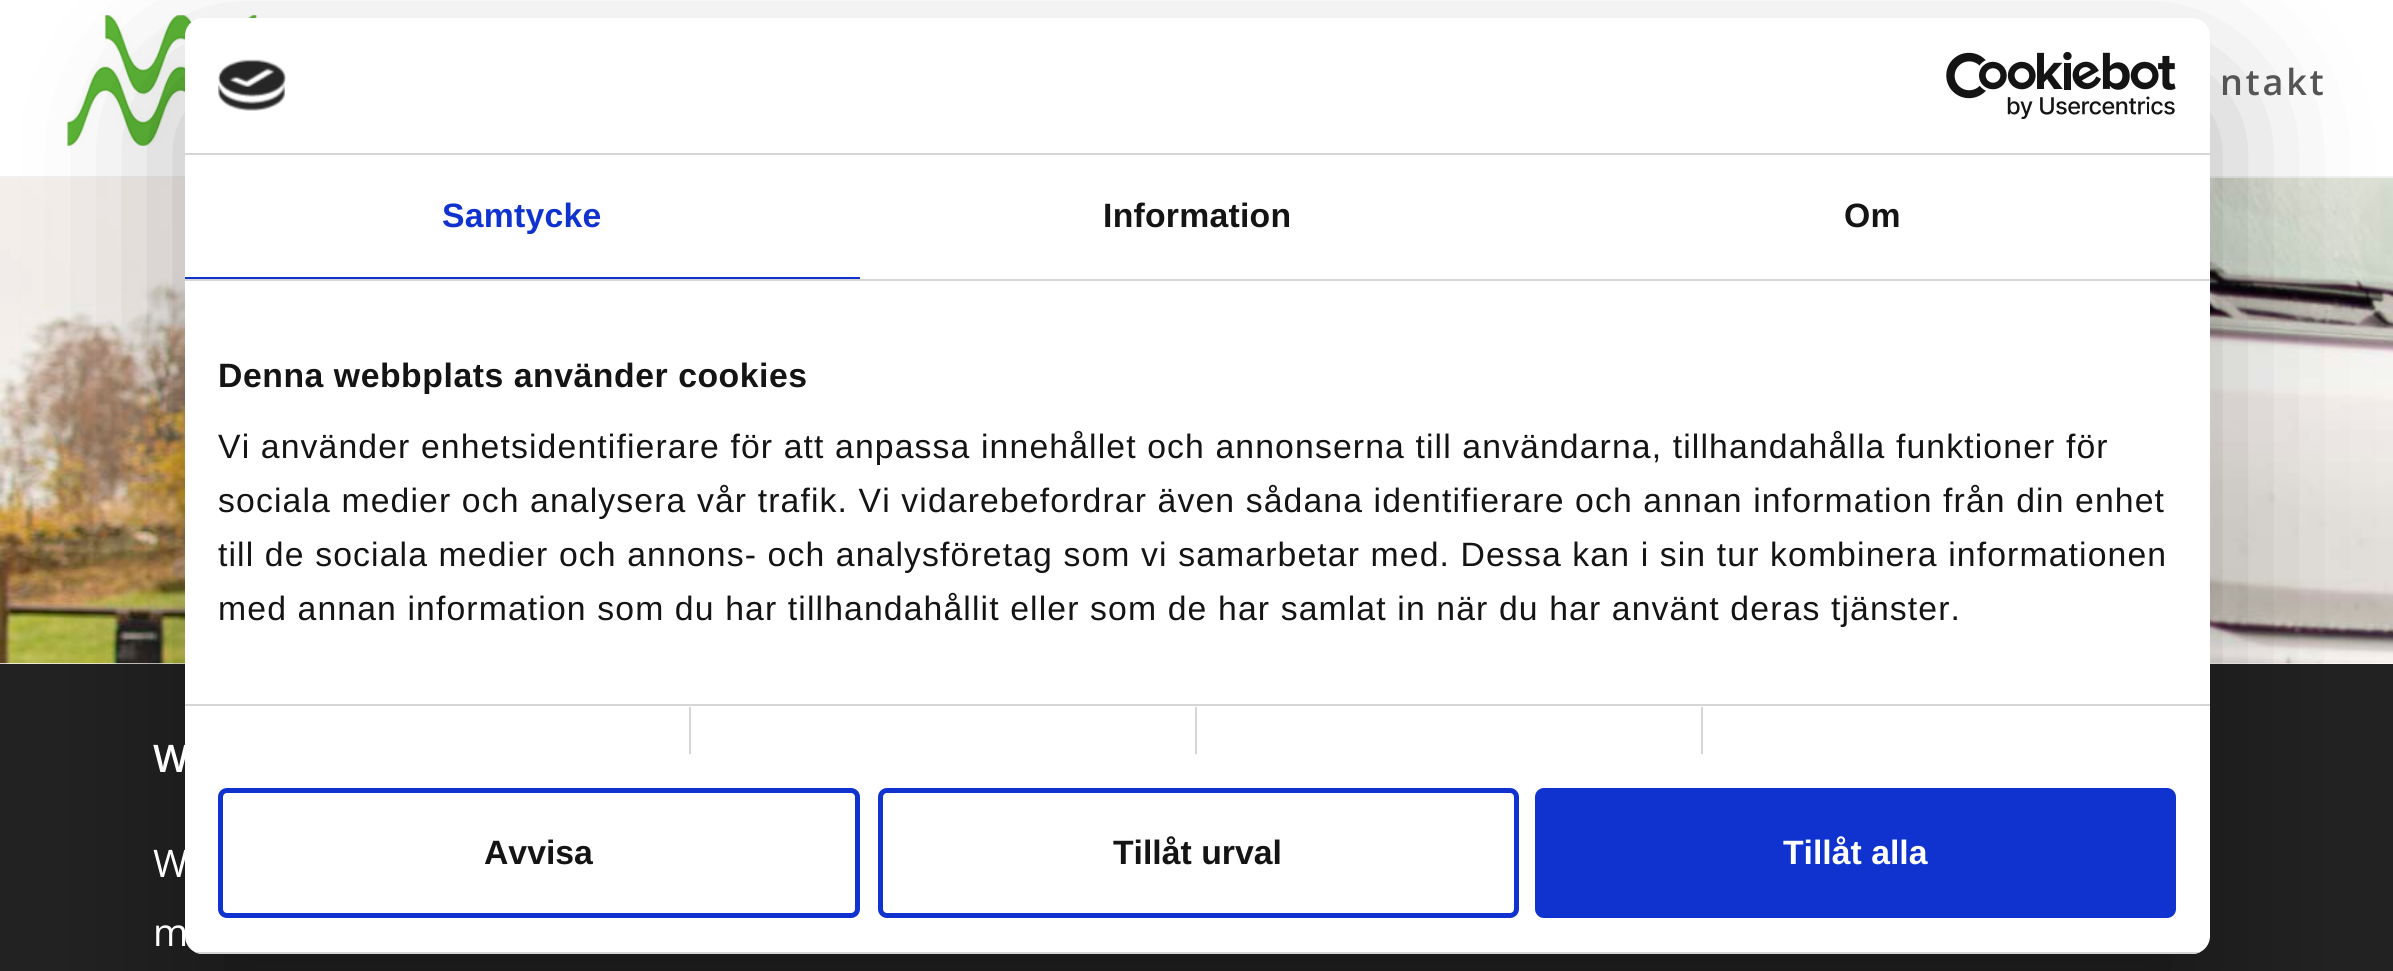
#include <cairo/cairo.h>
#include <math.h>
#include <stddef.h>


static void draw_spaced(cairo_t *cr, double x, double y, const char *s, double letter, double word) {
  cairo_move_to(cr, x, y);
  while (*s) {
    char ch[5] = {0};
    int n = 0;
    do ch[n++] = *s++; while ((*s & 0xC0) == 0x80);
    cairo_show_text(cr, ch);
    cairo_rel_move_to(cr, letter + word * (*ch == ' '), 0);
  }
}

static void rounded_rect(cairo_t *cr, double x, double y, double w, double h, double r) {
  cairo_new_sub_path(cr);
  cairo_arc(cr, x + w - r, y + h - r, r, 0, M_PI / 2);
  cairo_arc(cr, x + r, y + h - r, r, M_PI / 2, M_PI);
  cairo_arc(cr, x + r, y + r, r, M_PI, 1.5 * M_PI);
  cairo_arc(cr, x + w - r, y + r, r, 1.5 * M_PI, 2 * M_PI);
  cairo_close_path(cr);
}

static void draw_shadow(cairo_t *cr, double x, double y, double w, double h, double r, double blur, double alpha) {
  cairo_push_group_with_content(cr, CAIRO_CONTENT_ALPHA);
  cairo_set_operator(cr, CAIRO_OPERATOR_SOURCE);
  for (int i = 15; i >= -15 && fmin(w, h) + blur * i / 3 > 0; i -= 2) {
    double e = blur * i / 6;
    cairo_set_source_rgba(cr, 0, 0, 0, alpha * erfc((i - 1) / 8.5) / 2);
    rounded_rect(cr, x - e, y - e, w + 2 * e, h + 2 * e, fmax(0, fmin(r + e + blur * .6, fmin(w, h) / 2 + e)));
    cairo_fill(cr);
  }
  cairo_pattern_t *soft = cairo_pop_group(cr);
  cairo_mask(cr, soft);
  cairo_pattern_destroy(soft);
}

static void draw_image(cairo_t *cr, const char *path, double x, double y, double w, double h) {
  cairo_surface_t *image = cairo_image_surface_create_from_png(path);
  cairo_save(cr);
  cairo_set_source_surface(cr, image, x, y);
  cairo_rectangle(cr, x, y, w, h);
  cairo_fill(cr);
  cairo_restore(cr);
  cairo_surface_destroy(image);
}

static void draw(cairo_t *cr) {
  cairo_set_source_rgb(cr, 1, 1, 1);
  cairo_paint(cr);
  cairo_set_source_rgb(cr, 241 / 255.0, 241 / 255.0, 241 / 255.0);
  cairo_rectangle(cr, 0, 176, 2393, 2);
  cairo_fill(cr);
  draw_image(cr, "images/1.png", 67, 15, 541, 131);
  draw_image(cr, "images/2.png", 0, 178, 2393, 486);
  cairo_set_source_rgb(cr, 34 / 255.0, 34 / 255.0, 34 / 255.0);
  cairo_rectangle(cr, 0, 664, 2393, 307);
  cairo_fill(cr);
  cairo_set_source_rgb(cr, 0, 0, 0);
  draw_shadow(cr, 185, 90, 2025, 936, 18, 76.5, 0.3);
  cairo_set_source_rgb(cr, 1, 1, 1);
  rounded_rect(cr, 185, 18, 2025, 936, 18);
  cairo_fill(cr);
  cairo_set_source_rgb(cr, 214 / 255.0, 214 / 255.0, 214 / 255.0);
  cairo_rectangle(cr, 185, 153, 2025, 2);
  cairo_fill(cr);
  draw_image(cr, "images/3.png", 218, 59, 68, 52);
  draw_image(cr, "images/4.png", 1946, 52, 230, 67);
  cairo_rectangle(cr, 185, 279, 2025, 2);
  cairo_fill(cr);
  cairo_set_source_rgb(cr, 16 / 255.0, 50 / 255.0, 207 / 255.0);
  cairo_rectangle(cr, 185, 277, 675, 2);
  cairo_fill(cr);
  cairo_set_source_rgb(cr, 214 / 255.0, 214 / 255.0, 214 / 255.0);
  cairo_rectangle(cr, 185, 704, 2025, 2);
  cairo_fill(cr);
  cairo_rectangle(cr, 689, 707, 2, 47);
  cairo_fill(cr);
  cairo_rectangle(cr, 1195, 707, 2, 47);
  cairo_fill(cr);
  cairo_rectangle(cr, 1701, 707, 2, 47);
  cairo_fill(cr);
  cairo_save(cr);
  rounded_rect(cr, 185, 18, 2025, 936, 18);
  cairo_clip(cr);
  cairo_rectangle(cr, 195, 952, 2005, 2);
  cairo_fill(cr);
  cairo_restore(cr);
  rounded_rect(cr, 220.5, 790.5, 637, 125, 6.5);
  cairo_set_source_rgb(cr, 16 / 255.0, 50 / 255.0, 207 / 255.0);
  cairo_set_line_width(cr, 5);
  cairo_stroke(cr);
  rounded_rect(cr, 880.5, 790.5, 636, 125, 6.5);
  cairo_stroke(cr);
  rounded_rect(cr, 1537.5, 790.5, 636, 125, 6.5);
  cairo_fill_preserve(cr);
  cairo_stroke(cr);
  cairo_select_font_face(cr, "Open Sans SemiBold", CAIRO_FONT_SLANT_NORMAL, CAIRO_FONT_WEIGHT_NORMAL);
  cairo_set_font_size(cr, 36);
  cairo_set_source_rgb(cr, 85 / 255.0, 85 / 255.0, 85 / 255.0);
  draw_spaced(cr, 2220, 95, "ntakt", 2.75, 0);
  cairo_set_font_size(cr, 38);
  cairo_set_source_rgb(cr, 1, 1, 1);
  cairo_move_to(cr, 153, 772);
  cairo_show_text(cr, "W");
  cairo_select_font_face(cr, "Open Sans", CAIRO_FONT_SLANT_NORMAL, CAIRO_FONT_WEIGHT_NORMAL);
  cairo_move_to(cr, 153, 877);
  cairo_show_text(cr, "W");
  cairo_move_to(cr, 153, 946);
  cairo_show_text(cr, "m");
  cairo_select_font_face(cr, "Liberation Sans", CAIRO_FONT_SLANT_NORMAL, CAIRO_FONT_WEIGHT_BOLD);
  cairo_set_font_size(cr, 33.75);
  cairo_set_source_rgb(cr, 16 / 255.0, 50 / 255.0, 207 / 255.0);
  draw_spaced(cr, 442, 227, "Samtycke", 0.25, 0);
  cairo_set_source_rgb(cr, 20 / 255.0, 20 / 255.0, 20 / 255.0);
  draw_spaced(cr, 1103, 227, "Information", 0.25, 0);
  draw_spaced(cr, 1844, 227, "Om", 0.25, 0);
  draw_spaced(cr, 218, 387, "Denna webbplats använder cookies", 0.55, 0);
  cairo_select_font_face(cr, "Liberation Sans", CAIRO_FONT_SLANT_NORMAL, CAIRO_FONT_WEIGHT_NORMAL);
  draw_spaced(cr, 218, 458, "Vi använder enhetsidentifierare för att anpassa innehållet och annonserna till användarna, tillhandahålla funktioner för", 1.12, 0);
  draw_spaced(cr, 218, 512, "sociala medier och analysera vår trafik. Vi vidarebefordrar även sådana identifierare och annan information från din enhet", 1.12, 0);
  draw_spaced(cr, 218, 566, "till de sociala medier och annons- och analysföretag som vi samarbetar med. Dessa kan i sin tur kombinera informationen", 1.12, 0);
  draw_spaced(cr, 218, 620, "med annan information som du har tillhandahållit eller som de har samlat in när du har använt deras tjänster.", 1.12, 0);
  cairo_select_font_face(cr, "Liberation Sans", CAIRO_FONT_SLANT_NORMAL, CAIRO_FONT_WEIGHT_BOLD);
  cairo_move_to(cr, 484, 864);
  cairo_show_text(cr, "Avvisa");
  cairo_move_to(cr, 1113, 864);
  cairo_show_text(cr, "Tillåt urval");
  cairo_set_source_rgb(cr, 1, 1, 1);
  cairo_move_to(cr, 1783, 864);
  cairo_show_text(cr, "Tillåt alla");
}

int main(void) {
  cairo_surface_t *surface = cairo_image_surface_create(CAIRO_FORMAT_RGB24, 2393, 971);
  cairo_t *cr = cairo_create(surface);
  cairo_font_options_t *options = cairo_font_options_create();
  cairo_font_options_set_hint_metrics(options, CAIRO_HINT_METRICS_OFF);
  cairo_font_options_set_hint_style(options, CAIRO_HINT_STYLE_NONE);
  cairo_set_font_options(cr, options);
  cairo_set_miter_limit(cr, 4);
  draw(cr);
  cairo_surface_write_to_png(surface, "out.png");
  cairo_font_options_destroy(options);
  cairo_destroy(cr);
  cairo_surface_destroy(surface);
  return 0;
}
